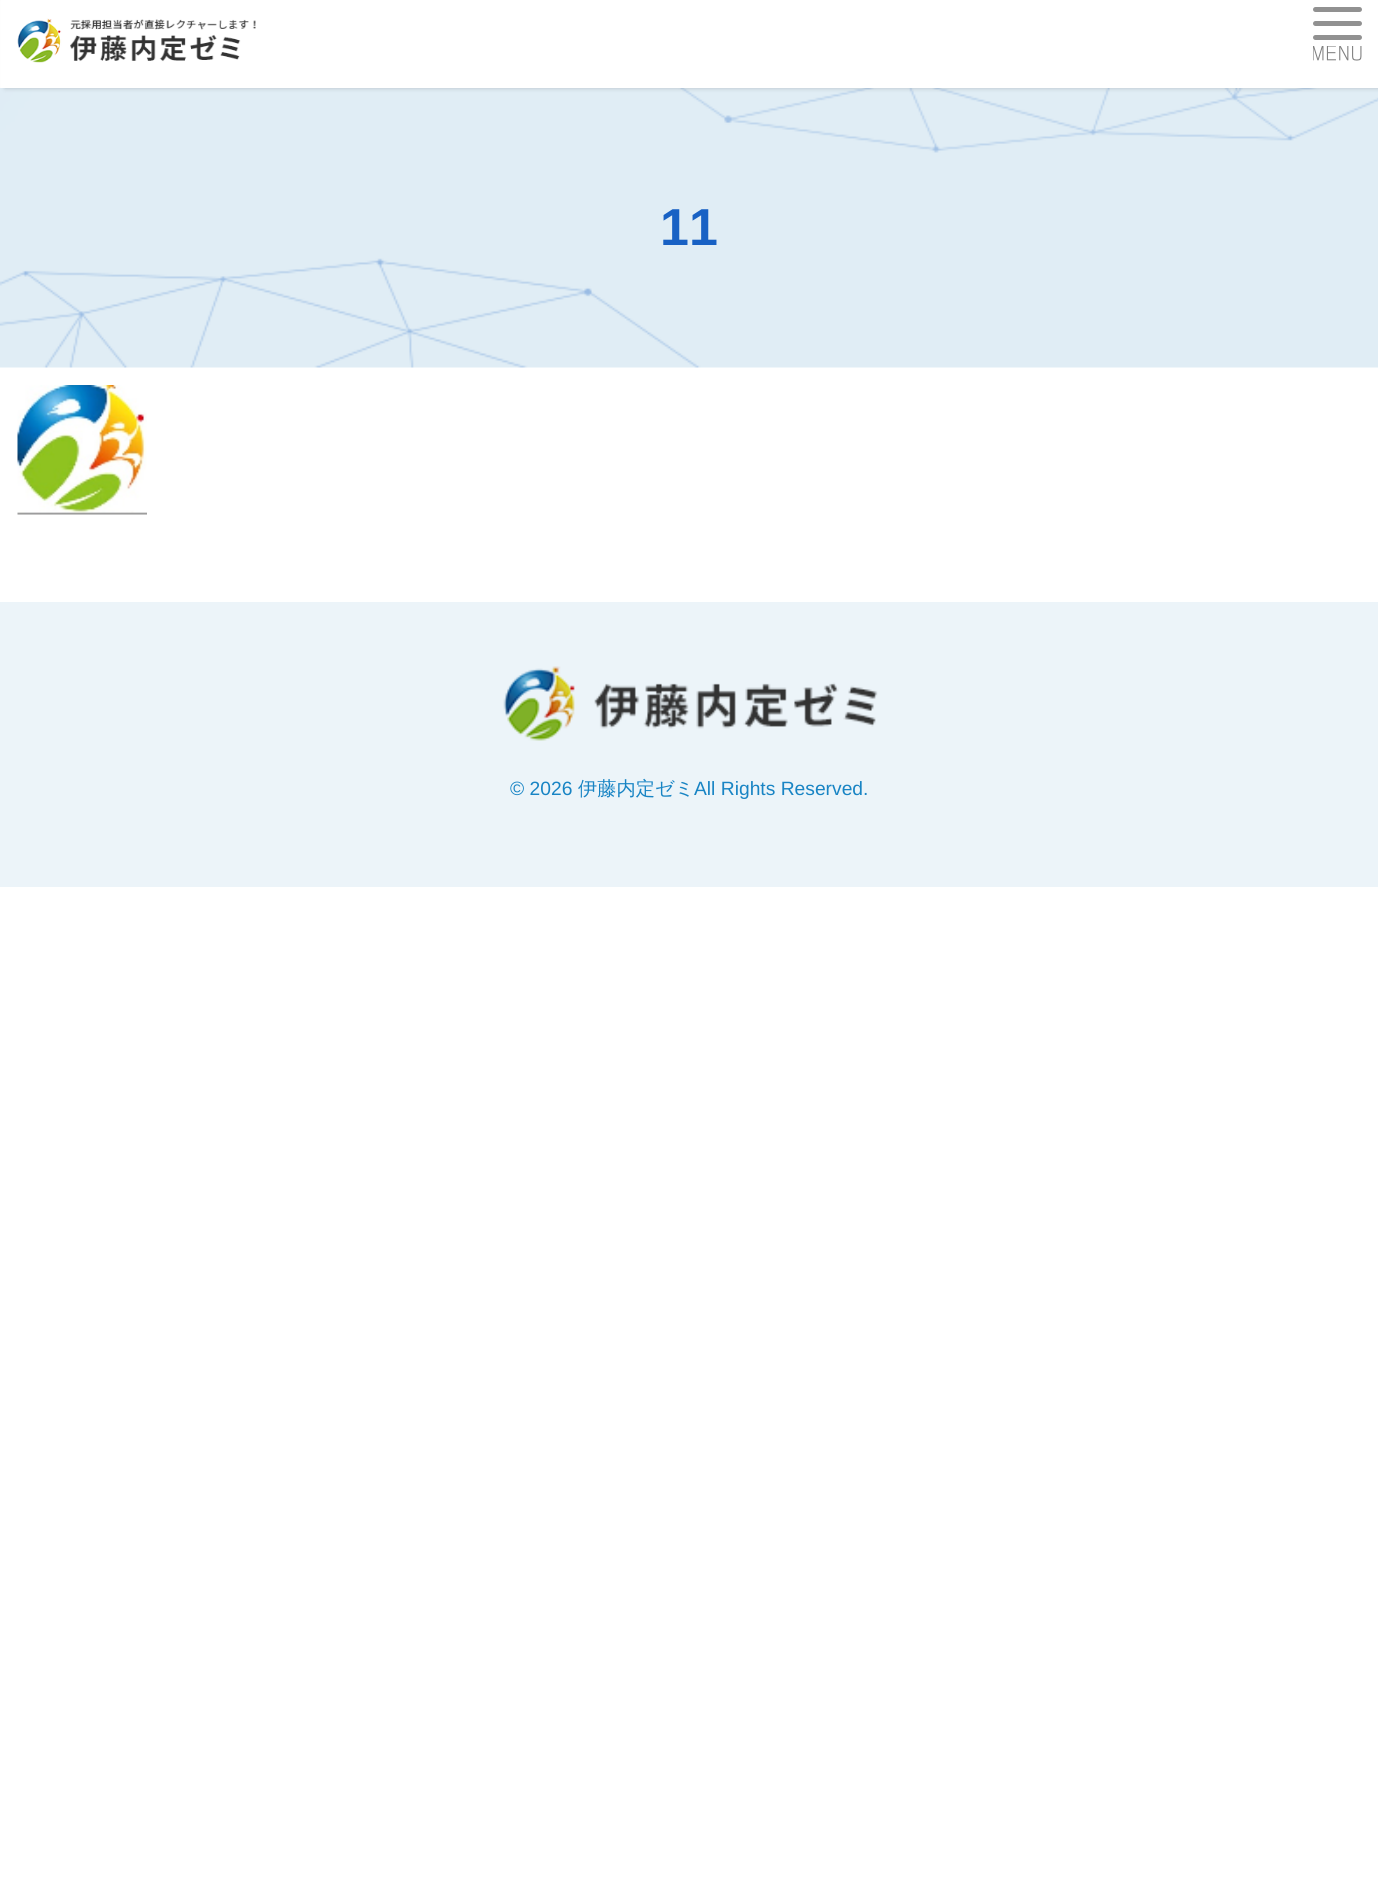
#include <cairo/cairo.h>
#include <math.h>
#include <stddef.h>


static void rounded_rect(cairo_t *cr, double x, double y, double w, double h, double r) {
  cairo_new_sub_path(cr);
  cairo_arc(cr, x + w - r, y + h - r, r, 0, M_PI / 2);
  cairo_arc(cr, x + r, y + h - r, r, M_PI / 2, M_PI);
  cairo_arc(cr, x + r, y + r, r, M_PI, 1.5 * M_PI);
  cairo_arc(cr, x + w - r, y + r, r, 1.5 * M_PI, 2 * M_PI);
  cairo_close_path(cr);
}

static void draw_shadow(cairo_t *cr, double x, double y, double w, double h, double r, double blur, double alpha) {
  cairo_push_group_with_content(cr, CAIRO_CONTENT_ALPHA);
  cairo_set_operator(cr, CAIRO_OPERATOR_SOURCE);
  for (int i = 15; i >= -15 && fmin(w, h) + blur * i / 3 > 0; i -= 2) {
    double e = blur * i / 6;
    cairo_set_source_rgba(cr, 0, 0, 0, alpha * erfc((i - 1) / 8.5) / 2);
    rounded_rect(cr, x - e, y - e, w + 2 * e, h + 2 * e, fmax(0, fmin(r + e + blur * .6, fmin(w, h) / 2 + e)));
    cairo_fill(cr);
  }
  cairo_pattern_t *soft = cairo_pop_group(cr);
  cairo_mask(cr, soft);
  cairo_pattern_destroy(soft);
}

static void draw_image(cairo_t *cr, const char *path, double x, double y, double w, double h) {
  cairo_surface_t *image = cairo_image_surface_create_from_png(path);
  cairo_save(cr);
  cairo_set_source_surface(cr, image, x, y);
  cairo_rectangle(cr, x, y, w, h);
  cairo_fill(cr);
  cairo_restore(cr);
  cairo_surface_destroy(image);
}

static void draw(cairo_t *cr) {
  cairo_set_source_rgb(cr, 1, 1, 1);
  cairo_paint(cr);
  draw_image(cr, "images/3.png", 0, 88, 1378, 280);
  cairo_set_source_rgb(cr, 0, 0, 0);
  draw_shadow(cr, 5, 0, 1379, 88, 0, 2.5, 0.2);
  cairo_set_source_rgb(cr, 1, 1, 1);
  cairo_rectangle(cr, 1, 0, 1377, 88);
  cairo_fill(cr);
  draw_image(cr, "images/1.png", 17, 18, 239, 45);
  cairo_set_source_rgb(cr, 145 / 255.0, 145 / 255.0, 145 / 255.0);
  rounded_rect(cr, 1313, 21, 49, 5, 2.5);
  cairo_fill(cr);
  rounded_rect(cr, 1313, 7, 49, 5, 2.5);
  cairo_fill(cr);
  rounded_rect(cr, 1313, 35, 49, 5, 2.5);
  cairo_fill(cr);
  draw_image(cr, "images/2.png", 1313, 46, 49, 15);
  draw_image(cr, "images/4.png", 17, 385, 130, 130);
  cairo_set_source_rgb(cr, 236 / 255.0, 244 / 255.0, 249 / 255.0);
  cairo_rectangle(cr, 0, 602, 1378, 285);
  cairo_fill(cr);
  draw_image(cr, "images/5.png", 503, 666, 375, 75);
  cairo_select_font_face(cr, "Liberation Sans", CAIRO_FONT_SLANT_NORMAL, CAIRO_FONT_WEIGHT_BOLD);
  cairo_set_font_size(cr, 52);
  cairo_set_source_rgb(cr, 24 / 255.0, 97 / 255.0, 196 / 255.0);
  cairo_move_to(cr, 660, 245);
  cairo_show_text(cr, "11");
  cairo_select_font_face(cr, "Liberation Sans", CAIRO_FONT_SLANT_NORMAL, CAIRO_FONT_WEIGHT_NORMAL);
  cairo_set_font_size(cr, 19.25);
  cairo_set_source_rgb(cr, 24 / 255.0, 132 / 255.0, 196 / 255.0);
  cairo_move_to(cr, 510, 795);
  cairo_show_text(cr, "© 2026");
  cairo_select_font_face(cr, "WenQuanYi Zen Hei Medium", CAIRO_FONT_SLANT_NORMAL, CAIRO_FONT_WEIGHT_NORMAL);
  cairo_move_to(cr, 578, 795);
  cairo_show_text(cr, "伊藤内定ゼミ");
  cairo_select_font_face(cr, "Liberation Sans", CAIRO_FONT_SLANT_NORMAL, CAIRO_FONT_WEIGHT_NORMAL);
  cairo_move_to(cr, 694, 795);
  cairo_show_text(cr, "All Rights Reserved.");
}

int main(void) {
  cairo_surface_t *surface = cairo_image_surface_create(CAIRO_FORMAT_RGB24, 1378, 1880);
  cairo_t *cr = cairo_create(surface);
  cairo_font_options_t *options = cairo_font_options_create();
  cairo_font_options_set_hint_metrics(options, CAIRO_HINT_METRICS_OFF);
  cairo_font_options_set_hint_style(options, CAIRO_HINT_STYLE_NONE);
  cairo_set_font_options(cr, options);
  cairo_set_miter_limit(cr, 4);
  draw(cr);
  cairo_surface_write_to_png(surface, "out.png");
  cairo_font_options_destroy(options);
  cairo_destroy(cr);
  cairo_surface_destroy(surface);
  return 0;
}
